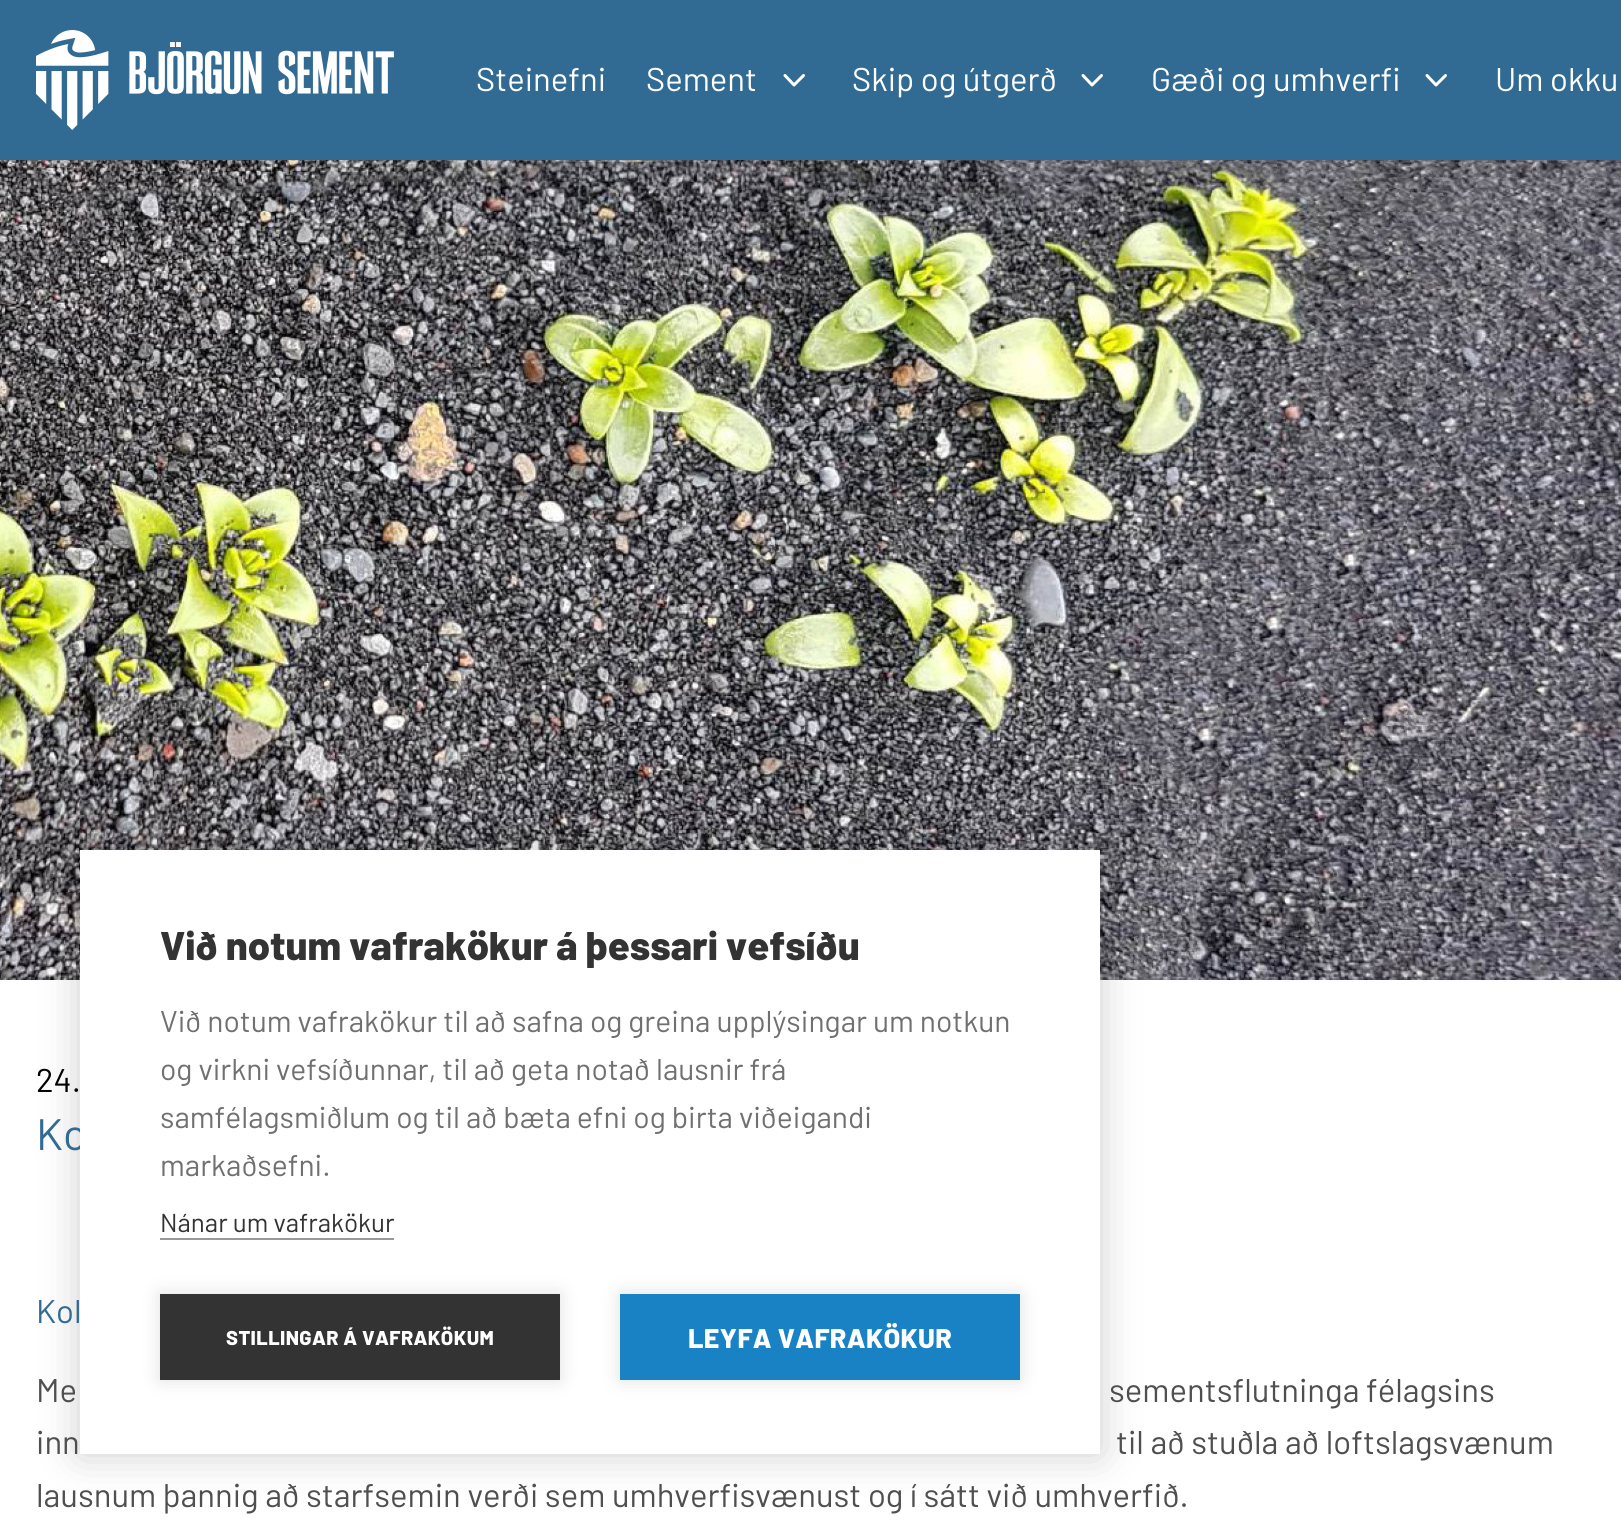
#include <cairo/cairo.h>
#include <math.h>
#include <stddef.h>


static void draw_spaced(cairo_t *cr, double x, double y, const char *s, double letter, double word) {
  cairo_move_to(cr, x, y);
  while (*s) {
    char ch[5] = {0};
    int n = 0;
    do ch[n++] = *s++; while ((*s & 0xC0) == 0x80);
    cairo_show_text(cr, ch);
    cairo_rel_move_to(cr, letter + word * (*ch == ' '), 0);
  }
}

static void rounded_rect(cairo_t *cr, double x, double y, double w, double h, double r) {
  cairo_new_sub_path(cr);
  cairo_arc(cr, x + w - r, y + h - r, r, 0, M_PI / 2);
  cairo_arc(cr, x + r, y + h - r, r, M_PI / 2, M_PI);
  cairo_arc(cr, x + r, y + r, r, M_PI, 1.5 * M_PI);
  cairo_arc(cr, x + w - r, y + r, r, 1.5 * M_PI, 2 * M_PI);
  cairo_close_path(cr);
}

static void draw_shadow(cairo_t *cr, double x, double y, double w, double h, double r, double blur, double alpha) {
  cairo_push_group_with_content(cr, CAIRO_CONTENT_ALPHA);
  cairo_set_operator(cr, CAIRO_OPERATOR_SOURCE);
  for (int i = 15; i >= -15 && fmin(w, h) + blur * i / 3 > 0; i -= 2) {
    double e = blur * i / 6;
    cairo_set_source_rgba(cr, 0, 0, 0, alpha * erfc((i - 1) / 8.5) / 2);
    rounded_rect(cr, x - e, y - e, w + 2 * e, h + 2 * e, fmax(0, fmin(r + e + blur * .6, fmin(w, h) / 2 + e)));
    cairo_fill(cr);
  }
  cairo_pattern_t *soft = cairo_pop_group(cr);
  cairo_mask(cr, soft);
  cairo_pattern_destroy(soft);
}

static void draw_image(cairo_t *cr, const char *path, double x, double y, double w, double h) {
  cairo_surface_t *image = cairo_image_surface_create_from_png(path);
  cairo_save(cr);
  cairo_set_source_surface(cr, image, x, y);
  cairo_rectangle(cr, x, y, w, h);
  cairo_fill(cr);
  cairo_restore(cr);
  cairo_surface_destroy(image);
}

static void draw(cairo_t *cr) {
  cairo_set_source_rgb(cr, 1, 1, 1);
  cairo_paint(cr);
  cairo_set_source_rgb(cr, 49 / 255.0, 107 / 255.0, 147 / 255.0);
  cairo_rectangle(cr, 0, 0, 1621, 160);
  cairo_fill(cr);
  draw_image(cr, "images/1.png", 36, 30, 358, 100);
  cairo_new_path(cr);
  cairo_move_to(cr, 785, 75.5);
  cairo_line_to(cr, 794, 85);
  cairo_line_to(cr, 803.5, 75.5);
  cairo_set_source_rgb(cr, 1, 1, 1);
  cairo_set_line_width(cr, 3);
  cairo_set_line_cap(cr, CAIRO_LINE_CAP_ROUND);
  cairo_set_line_join(cr, CAIRO_LINE_JOIN_ROUND);
  cairo_stroke(cr);
  cairo_new_path(cr);
  cairo_move_to(cr, 1083, 75.5);
  cairo_line_to(cr, 1092, 85);
  cairo_line_to(cr, 1101.5, 75.5);
  cairo_stroke(cr);
  cairo_new_path(cr);
  cairo_move_to(cr, 1427, 75.5);
  cairo_line_to(cr, 1436, 85);
  cairo_line_to(cr, 1445.5, 75.5);
  cairo_stroke(cr);
  draw_image(cr, "images/2.png", 0, 160, 1621, 820);
  cairo_set_source_rgb(cr, 0, 0, 0);
  draw_shadow(cr, 80, 850, 1020, 604, 0, 20, 0.2);
  cairo_select_font_face(cr, "Barlow", CAIRO_FONT_SLANT_NORMAL, CAIRO_FONT_WEIGHT_NORMAL);
  cairo_set_font_size(cr, 32.85);
  cairo_set_source_rgb(cr, 1, 1, 1);
  cairo_move_to(cr, 476, 91);
  cairo_show_text(cr, "Steinefni");
  cairo_move_to(cr, 646, 91);
  cairo_show_text(cr, "Sement");
  cairo_move_to(cr, 852, 91);
  cairo_show_text(cr, "Skip og útgerð");
  cairo_move_to(cr, 1151, 91);
  cairo_show_text(cr, "Gæði og umhverfi");
  cairo_move_to(cr, 1495, 91);
  cairo_show_text(cr, "Um okku");
  cairo_set_source_rgb(cr, 0, 0, 0);
  cairo_move_to(cr, 36, 1092);
  cairo_show_text(cr, "24.");
  cairo_set_font_size(cr, 44);
  cairo_set_source_rgb(cr, 49 / 255.0, 107 / 255.0, 147 / 255.0);
  cairo_move_to(cr, 36, 1150);
  cairo_show_text(cr, "Ko");
  cairo_set_font_size(cr, 32.85);
  cairo_move_to(cr, 36, 1323);
  cairo_show_text(cr, "Kol");
  cairo_set_source_rgb(cr, 79 / 255.0, 79 / 255.0, 79 / 255.0);
  cairo_move_to(cr, 36, 1402);
  cairo_show_text(cr, "Me");
  cairo_move_to(cr, 1109, 1402);
  cairo_show_text(cr, "sementsflutninga félagsins");
  cairo_move_to(cr, 36, 1454);
  cairo_show_text(cr, "inn");
  cairo_move_to(cr, 1116, 1454);
  cairo_show_text(cr, "til að stuðla að loftslagsvænum");
  cairo_move_to(cr, 36, 1507);
  cairo_show_text(cr, "lausnum þannig að starfsemin verði sem umhverfisvænust og í sátt við umhverfið.");
  cairo_set_source_rgb(cr, 1, 1, 1);
  cairo_rectangle(cr, 80, 850, 1020, 604);
  cairo_fill(cr);
  cairo_select_font_face(cr, "Barlow ExtraBold", CAIRO_FONT_SLANT_NORMAL, CAIRO_FONT_WEIGHT_NORMAL);
  cairo_set_font_size(cr, 40);
  cairo_set_source_rgb(cr, 51 / 255.0, 51 / 255.0, 51 / 255.0);
  cairo_move_to(cr, 160, 960);
  cairo_show_text(cr, "Við notum vafrakökur á þessari vefsíðu");
  cairo_select_font_face(cr, "Barlow", CAIRO_FONT_SLANT_NORMAL, CAIRO_FONT_WEIGHT_NORMAL);
  cairo_set_font_size(cr, 30);
  cairo_set_source_rgb(cr, 112 / 255.0, 112 / 255.0, 112 / 255.0);
  cairo_move_to(cr, 160, 1032);
  cairo_show_text(cr, "Við notum vafrakökur til að safna og greina upplýsingar um notkun");
  cairo_move_to(cr, 160, 1080);
  cairo_show_text(cr, "og virkni vefsíðunnar, til að geta notað lausnir frá");
  cairo_move_to(cr, 160, 1128);
  cairo_show_text(cr, "samfélagsmiðlum og til að bæta efni og birta viðeigandi");
  cairo_move_to(cr, 160, 1176);
  cairo_show_text(cr, "markaðsefni.");
  cairo_set_font_size(cr, 26);
  cairo_set_source_rgb(cr, 51 / 255.0, 51 / 255.0, 51 / 255.0);
  cairo_move_to(cr, 160, 1232);
  cairo_show_text(cr, "Nánar um vafrakökur");
  cairo_set_source_rgb(cr, 153 / 255.0, 153 / 255.0, 153 / 255.0);
  cairo_rectangle(cr, 160, 1238, 234, 2);
  cairo_fill(cr);
  cairo_set_source_rgb(cr, 0, 0, 0);
  draw_shadow(cr, 160, 1294, 400, 86, 0, 10, 0.12);
  cairo_set_source_rgb(cr, 51 / 255.0, 51 / 255.0, 51 / 255.0);
  cairo_rectangle(cr, 160, 1294, 400, 86);
  cairo_fill(cr);
  cairo_select_font_face(cr, "Barlow ExtraBold", CAIRO_FONT_SLANT_NORMAL, CAIRO_FONT_WEIGHT_NORMAL);
  cairo_set_font_size(cr, 20);
  cairo_set_source_rgb(cr, 1, 1, 1);
  draw_spaced(cr, 226, 1345, "STILLINGAR Á VAFRAKÖKUM", 0.4, 0);
  cairo_set_source_rgb(cr, 0, 0, 0);
  draw_shadow(cr, 620, 1294, 400, 86, 0, 10, 0.12);
  cairo_set_source_rgb(cr, 24 / 255.0, 130 / 255.0, 197 / 255.0);
  cairo_rectangle(cr, 620, 1294, 400, 86);
  cairo_fill(cr);
  cairo_set_font_size(cr, 27);
  cairo_set_source_rgb(cr, 1, 1, 1);
  draw_spaced(cr, 688, 1348, "LEYFA VAFRAKÖKUR", 0.4, 0);
}

int main(void) {
  cairo_surface_t *surface = cairo_image_surface_create(CAIRO_FORMAT_RGB24, 1621, 1533);
  cairo_t *cr = cairo_create(surface);
  cairo_font_options_t *options = cairo_font_options_create();
  cairo_font_options_set_hint_metrics(options, CAIRO_HINT_METRICS_OFF);
  cairo_font_options_set_hint_style(options, CAIRO_HINT_STYLE_NONE);
  cairo_set_font_options(cr, options);
  cairo_set_miter_limit(cr, 4);
  draw(cr);
  cairo_surface_write_to_png(surface, "out.png");
  cairo_font_options_destroy(options);
  cairo_destroy(cr);
  cairo_surface_destroy(surface);
  return 0;
}
